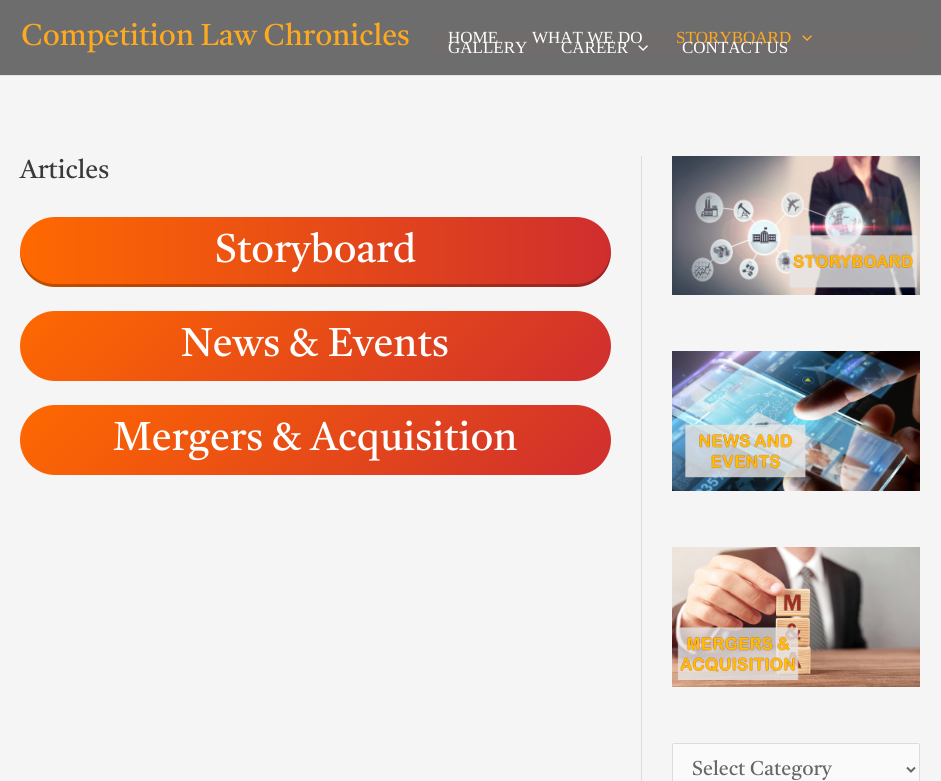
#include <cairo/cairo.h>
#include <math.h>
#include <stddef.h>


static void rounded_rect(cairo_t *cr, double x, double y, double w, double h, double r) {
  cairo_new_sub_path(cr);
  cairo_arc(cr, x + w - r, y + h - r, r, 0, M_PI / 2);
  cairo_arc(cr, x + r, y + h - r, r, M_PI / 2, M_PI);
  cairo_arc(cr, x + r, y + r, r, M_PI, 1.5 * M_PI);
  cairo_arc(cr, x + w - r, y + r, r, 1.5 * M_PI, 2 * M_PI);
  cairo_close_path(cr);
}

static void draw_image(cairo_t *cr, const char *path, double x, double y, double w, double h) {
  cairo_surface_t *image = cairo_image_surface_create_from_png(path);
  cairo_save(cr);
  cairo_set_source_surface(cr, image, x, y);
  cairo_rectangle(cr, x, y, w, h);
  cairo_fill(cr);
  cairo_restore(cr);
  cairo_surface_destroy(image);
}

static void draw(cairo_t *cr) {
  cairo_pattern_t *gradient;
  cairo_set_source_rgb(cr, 245 / 255.0, 245 / 255.0, 245 / 255.0);
  cairo_paint(cr);
  cairo_set_source_rgb(cr, 109 / 255.0, 109 / 255.0, 109 / 255.0);
  cairo_rectangle(cr, 0, 0, 941, 75);
  cairo_fill(cr);
  cairo_set_source_rgb(cr, 229 / 255.0, 229 / 255.0, 229 / 255.0);
  cairo_rectangle(cr, 0, 75, 941, 1);
  cairo_fill(cr);
  cairo_set_source_rgb(cr, 112 / 255.0, 108 / 255.0, 108 / 255.0);
  cairo_rectangle(cr, 431, 33, 490, 20);
  cairo_fill(cr);
  draw_image(cr, "images/1.png", 802, 35, 10, 6);
  draw_image(cr, "images/2.png", 638, 45, 10, 6);
  cairo_set_source_rgb(cr, 221 / 255.0, 221 / 255.0, 221 / 255.0);
  cairo_rectangle(cr, 641, 156, 1, 625);
  cairo_fill(cr);
  gradient = cairo_pattern_create_linear(20, 252, 611, 252);
  cairo_pattern_add_color_stop_rgba(gradient, 0, 1, 105 / 255.0, 0, 1);
  cairo_pattern_add_color_stop_rgba(gradient, 1, 207 / 255.0, 46 / 255.0, 46 / 255.0, 1);
  cairo_set_source(cr, gradient);
  cairo_pattern_destroy(gradient);
  rounded_rect(cr, 20, 217, 591, 70, 35);
  cairo_fill(cr);
  cairo_set_source_rgba(cr, 0, 0, 0, 0.25);
  cairo_new_path(cr);
  cairo_move_to(cr, 20, 250);
  cairo_curve_to(cr, 19, 270, 35, 287, 55, 287);
  cairo_line_to(cr, 576, 287);
  cairo_curve_to(cr, 596, 287, 612, 270, 611, 250);
  cairo_curve_to(cr, 610, 269, 595, 284, 576, 284);
  cairo_line_to(cr, 55, 284);
  cairo_curve_to(cr, 36, 284, 21, 269, 20, 250);
  cairo_close_path(cr);
  cairo_fill(cr);
  gradient = cairo_pattern_create_linear(150, 181, 481, 511);
  cairo_pattern_add_color_stop_rgba(gradient, 0, 1, 105 / 255.0, 0, 1);
  cairo_pattern_add_color_stop_rgba(gradient, 1, 207 / 255.0, 46 / 255.0, 46 / 255.0, 1);
  cairo_set_source(cr, gradient);
  cairo_pattern_destroy(gradient);
  rounded_rect(cr, 20, 311, 591, 70, 35);
  cairo_fill(cr);
  gradient = cairo_pattern_create_linear(150, 275, 481, 605);
  cairo_pattern_add_color_stop_rgba(gradient, 0, 1, 105 / 255.0, 0, 1);
  cairo_pattern_add_color_stop_rgba(gradient, 1, 207 / 255.0, 46 / 255.0, 46 / 255.0, 1);
  cairo_set_source(cr, gradient);
  cairo_pattern_destroy(gradient);
  rounded_rect(cr, 20, 405, 591, 70, 35);
  cairo_fill(cr);
  draw_image(cr, "images/3.png", 672, 156, 248, 139);
  draw_image(cr, "images/4.png", 672, 351, 248, 140);
  draw_image(cr, "images/5.png", 672, 547, 248, 140);
  cairo_set_source_rgb(cr, 250 / 255.0, 250 / 255.0, 250 / 255.0);
  rounded_rect(cr, 672.5, 743.5, 247, 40, 1.5);
  cairo_fill_preserve(cr);
  cairo_set_source_rgb(cr, 221 / 255.0, 221 / 255.0, 221 / 255.0);
  cairo_set_line_width(cr, 1);
  cairo_stroke(cr);
  cairo_new_path(cr);
  cairo_move_to(cr, 907, 767.5);
  cairo_line_to(cr, 911, 771.5);
  cairo_line_to(cr, 915, 767.5);
  cairo_set_source_rgb(cr, 102 / 255.0, 102 / 255.0, 102 / 255.0);
  cairo_set_line_width(cr, 2);
  cairo_stroke(cr);
  cairo_select_font_face(cr, "Castoro", CAIRO_FONT_SLANT_NORMAL, CAIRO_FONT_WEIGHT_NORMAL);
  cairo_set_font_size(cr, 30);
  cairo_set_source_rgb(cr, 1, 169 / 255.0, 31 / 255.0);
  cairo_move_to(cr, 21, 45);
  cairo_show_text(cr, "Competition Law Chronicles");
  cairo_select_font_face(cr, "Liberation Serif", CAIRO_FONT_SLANT_NORMAL, CAIRO_FONT_WEIGHT_NORMAL);
  cairo_set_font_size(cr, 17);
  cairo_set_source_rgb(cr, 1, 1, 1);
  cairo_move_to(cr, 448, 43);
  cairo_show_text(cr, "HOME");
  cairo_move_to(cr, 532, 43);
  cairo_show_text(cr, "WHAT WE DO");
  cairo_set_source_rgb(cr, 1, 169 / 255.0, 31 / 255.0);
  cairo_move_to(cr, 676, 43);
  cairo_show_text(cr, "STORYBOARD");
  cairo_set_source_rgb(cr, 1, 1, 1);
  cairo_move_to(cr, 448, 53);
  cairo_show_text(cr, "GALLERY");
  cairo_move_to(cr, 561, 53);
  cairo_show_text(cr, "CAREER");
  cairo_move_to(cr, 682, 53);
  cairo_show_text(cr, "CONTACT US");
  cairo_select_font_face(cr, "Castoro", CAIRO_FONT_SLANT_NORMAL, CAIRO_FONT_WEIGHT_NORMAL);
  cairo_set_font_size(cr, 26);
  cairo_set_source_rgb(cr, 58 / 255.0, 58 / 255.0, 58 / 255.0);
  cairo_move_to(cr, 20, 178);
  cairo_show_text(cr, "Articles");
  cairo_set_font_size(cr, 40);
  cairo_set_source_rgb(cr, 1, 1, 1);
  cairo_move_to(cr, 215, 262);
  cairo_show_text(cr, "Storyboard");
  cairo_move_to(cr, 181, 356);
  cairo_show_text(cr, "News & Events");
  cairo_move_to(cr, 113, 450);
  cairo_show_text(cr, "Mergers & Acquisition");
  cairo_set_font_size(cr, 20);
  cairo_set_source_rgb(cr, 102 / 255.0, 102 / 255.0, 102 / 255.0);
  cairo_move_to(cr, 692, 775);
  cairo_show_text(cr, "Select Category");
}

int main(void) {
  cairo_surface_t *surface = cairo_image_surface_create(CAIRO_FORMAT_RGB24, 941, 781);
  cairo_t *cr = cairo_create(surface);
  cairo_font_options_t *options = cairo_font_options_create();
  cairo_font_options_set_hint_metrics(options, CAIRO_HINT_METRICS_OFF);
  cairo_font_options_set_hint_style(options, CAIRO_HINT_STYLE_NONE);
  cairo_set_font_options(cr, options);
  cairo_set_miter_limit(cr, 4);
  draw(cr);
  cairo_surface_write_to_png(surface, "out.png");
  cairo_font_options_destroy(options);
  cairo_destroy(cr);
  cairo_surface_destroy(surface);
  return 0;
}
